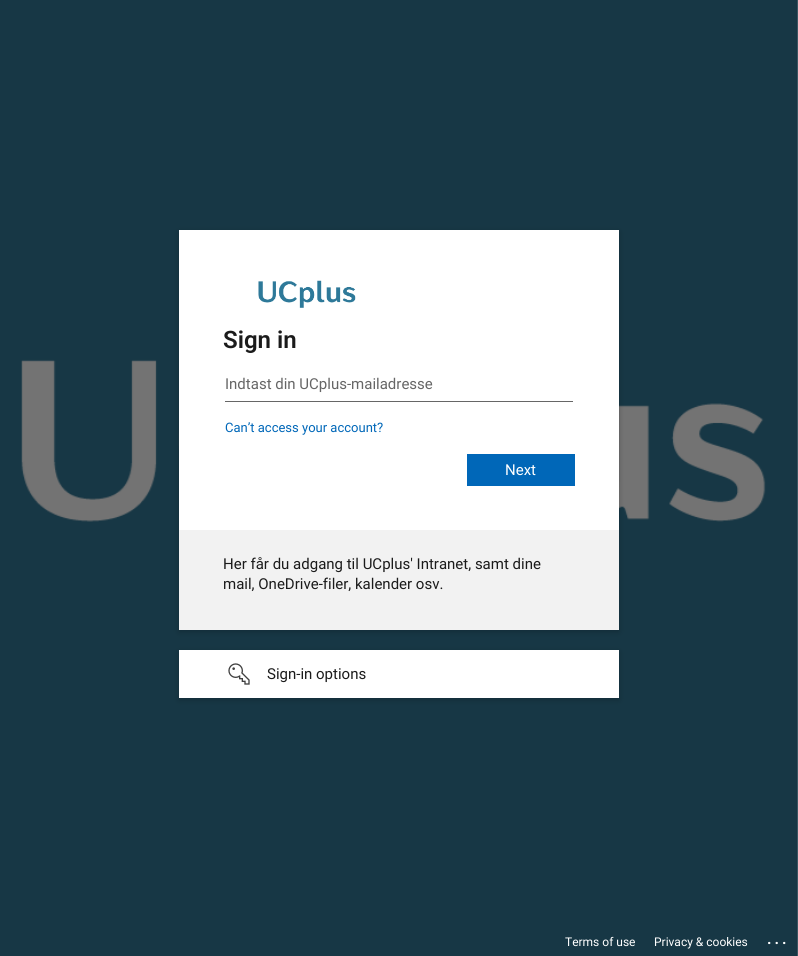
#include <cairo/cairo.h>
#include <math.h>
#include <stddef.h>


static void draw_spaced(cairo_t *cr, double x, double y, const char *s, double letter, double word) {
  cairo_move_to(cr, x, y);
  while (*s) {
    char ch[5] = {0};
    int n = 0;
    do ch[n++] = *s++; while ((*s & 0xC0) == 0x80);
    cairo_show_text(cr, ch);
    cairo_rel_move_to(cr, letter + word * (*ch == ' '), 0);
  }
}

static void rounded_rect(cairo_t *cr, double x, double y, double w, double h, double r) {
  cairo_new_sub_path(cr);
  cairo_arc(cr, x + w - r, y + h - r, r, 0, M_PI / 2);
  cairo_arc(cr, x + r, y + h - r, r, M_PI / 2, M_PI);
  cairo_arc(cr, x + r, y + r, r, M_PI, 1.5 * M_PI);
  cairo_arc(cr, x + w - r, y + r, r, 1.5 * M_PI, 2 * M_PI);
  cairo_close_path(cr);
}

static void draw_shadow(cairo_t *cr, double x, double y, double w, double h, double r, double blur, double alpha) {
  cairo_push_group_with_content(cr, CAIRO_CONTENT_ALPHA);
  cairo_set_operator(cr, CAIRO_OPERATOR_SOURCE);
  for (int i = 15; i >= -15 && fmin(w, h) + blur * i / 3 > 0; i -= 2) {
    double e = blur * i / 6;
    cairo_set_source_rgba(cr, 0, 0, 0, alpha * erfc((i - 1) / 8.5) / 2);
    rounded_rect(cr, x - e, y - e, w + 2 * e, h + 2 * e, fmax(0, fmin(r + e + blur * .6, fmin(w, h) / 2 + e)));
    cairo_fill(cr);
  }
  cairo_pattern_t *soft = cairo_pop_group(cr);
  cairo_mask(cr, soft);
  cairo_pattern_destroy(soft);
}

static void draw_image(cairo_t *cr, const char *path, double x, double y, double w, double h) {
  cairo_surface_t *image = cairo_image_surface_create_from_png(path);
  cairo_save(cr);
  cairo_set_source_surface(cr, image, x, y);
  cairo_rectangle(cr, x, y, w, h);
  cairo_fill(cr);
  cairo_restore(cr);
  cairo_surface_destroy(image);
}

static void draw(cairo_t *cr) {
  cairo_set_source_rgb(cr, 1, 1, 1);
  cairo_paint(cr);
  draw_image(cr, "images/1.png", 0, 0, 798, 956);
  cairo_set_source_rgb(cr, 0, 0, 0);
  draw_shadow(cr, 179, 232, 440, 400, 0, 3, 0.2);
  cairo_set_source_rgb(cr, 1, 1, 1);
  cairo_rectangle(cr, 179, 230, 440, 300);
  cairo_fill(cr);
  draw_image(cr, "images/2.png", 258, 280, 98, 28);
  cairo_set_source_rgb(cr, 102 / 255.0, 102 / 255.0, 102 / 255.0);
  cairo_rectangle(cr, 225, 401, 348, 1);
  cairo_fill(cr);
  cairo_set_source_rgb(cr, 0, 103 / 255.0, 184 / 255.0);
  cairo_rectangle(cr, 467, 454, 108, 32);
  cairo_fill(cr);
  cairo_set_source_rgb(cr, 242 / 255.0, 242 / 255.0, 242 / 255.0);
  cairo_rectangle(cr, 179, 530, 440, 100);
  cairo_fill(cr);
  cairo_set_source_rgb(cr, 0, 0, 0);
  draw_shadow(cr, 179, 652, 440, 48, 0, 3, 0.2);
  cairo_set_source_rgb(cr, 1, 1, 1);
  cairo_rectangle(cr, 179, 650, 440, 48);
  cairo_fill(cr);
  draw_image(cr, "images/3.png", 228, 663, 22, 22);
  cairo_select_font_face(cr, "Roboto SemiBold", CAIRO_FONT_SLANT_NORMAL, CAIRO_FONT_WEIGHT_NORMAL);
  cairo_set_font_size(cr, 24);
  cairo_set_source_rgb(cr, 27 / 255.0, 27 / 255.0, 27 / 255.0);
  cairo_move_to(cr, 223, 348);
  cairo_show_text(cr, "Sign in");
  cairo_select_font_face(cr, "Roboto", CAIRO_FONT_SLANT_NORMAL, CAIRO_FONT_WEIGHT_NORMAL);
  cairo_set_font_size(cr, 15);
  cairo_set_source_rgb(cr, 102 / 255.0, 102 / 255.0, 102 / 255.0);
  cairo_move_to(cr, 225, 389);
  cairo_show_text(cr, "Indtast din UCplus-mailadresse");
  cairo_set_font_size(cr, 13);
  cairo_set_source_rgb(cr, 0, 103 / 255.0, 184 / 255.0);
  cairo_move_to(cr, 225, 432);
  cairo_show_text(cr, "Can’t access your account?");
  cairo_set_font_size(cr, 15);
  cairo_set_source_rgb(cr, 1, 1, 1);
  cairo_move_to(cr, 505, 475);
  cairo_show_text(cr, "Next");
  cairo_set_source_rgb(cr, 27 / 255.0, 27 / 255.0, 27 / 255.0);
  cairo_move_to(cr, 223, 569);
  cairo_show_text(cr, "Her får du adgang til UCplus' Intranet, samt dine");
  cairo_move_to(cr, 223, 589);
  cairo_show_text(cr, "mail, OneDrive-filer, kalender osv.");
  cairo_move_to(cr, 267, 679);
  cairo_show_text(cr, "Sign-in options");
  cairo_set_font_size(cr, 12);
  cairo_set_source_rgb(cr, 1, 1, 1);
  cairo_move_to(cr, 565, 946);
  cairo_show_text(cr, "Terms of use");
  cairo_move_to(cr, 654, 946);
  cairo_show_text(cr, "Privacy & cookies");
  cairo_select_font_face(cr, "Roboto SemiBold", CAIRO_FONT_SLANT_NORMAL, CAIRO_FONT_WEIGHT_NORMAL);
  cairo_set_font_size(cr, 16);
  draw_spaced(cr, 767, 944, "...", 3, 0);
}

int main(void) {
  cairo_surface_t *surface = cairo_image_surface_create(CAIRO_FORMAT_RGB24, 798, 956);
  cairo_t *cr = cairo_create(surface);
  cairo_font_options_t *options = cairo_font_options_create();
  cairo_font_options_set_hint_metrics(options, CAIRO_HINT_METRICS_OFF);
  cairo_font_options_set_hint_style(options, CAIRO_HINT_STYLE_NONE);
  cairo_set_font_options(cr, options);
  cairo_set_miter_limit(cr, 4);
  draw(cr);
  cairo_surface_write_to_png(surface, "out.png");
  cairo_font_options_destroy(options);
  cairo_destroy(cr);
  cairo_surface_destroy(surface);
  return 0;
}
